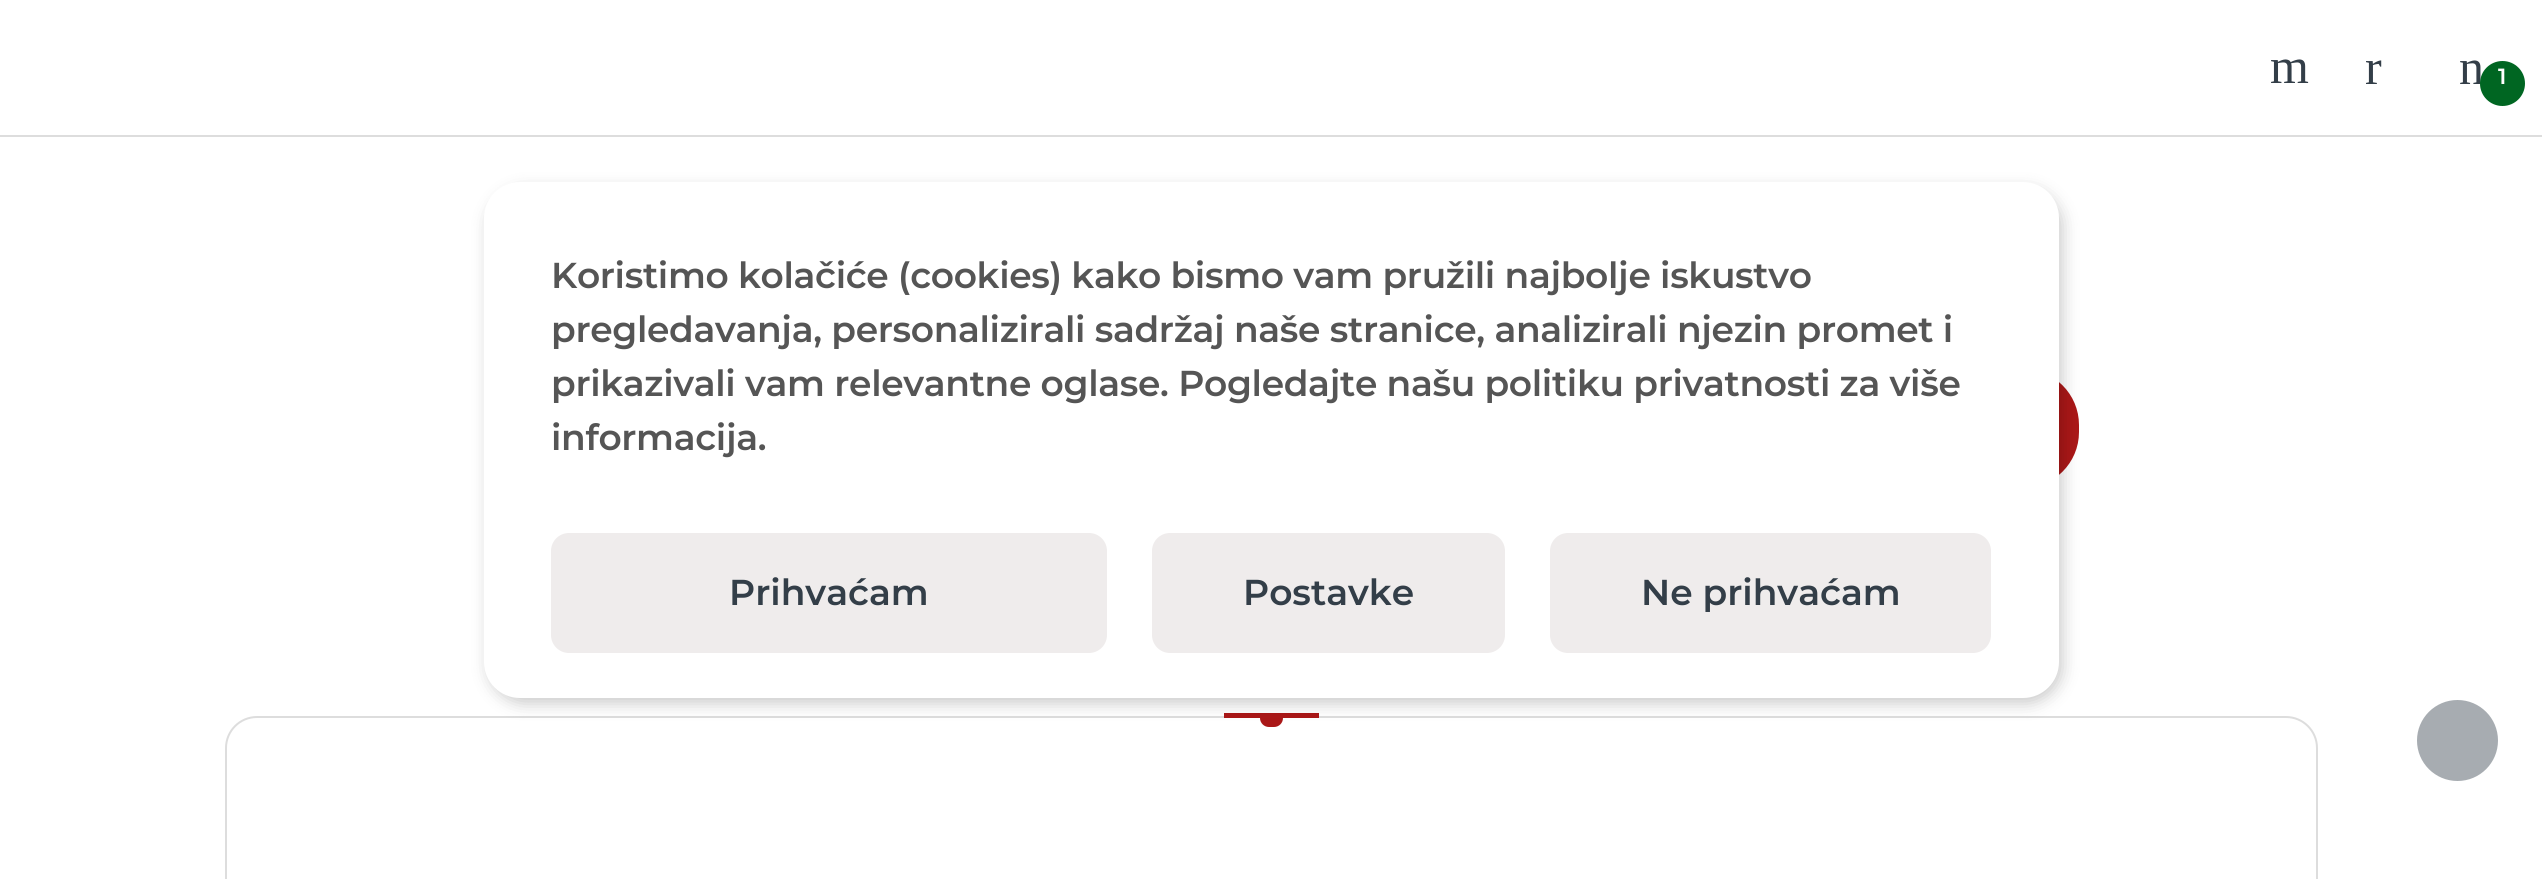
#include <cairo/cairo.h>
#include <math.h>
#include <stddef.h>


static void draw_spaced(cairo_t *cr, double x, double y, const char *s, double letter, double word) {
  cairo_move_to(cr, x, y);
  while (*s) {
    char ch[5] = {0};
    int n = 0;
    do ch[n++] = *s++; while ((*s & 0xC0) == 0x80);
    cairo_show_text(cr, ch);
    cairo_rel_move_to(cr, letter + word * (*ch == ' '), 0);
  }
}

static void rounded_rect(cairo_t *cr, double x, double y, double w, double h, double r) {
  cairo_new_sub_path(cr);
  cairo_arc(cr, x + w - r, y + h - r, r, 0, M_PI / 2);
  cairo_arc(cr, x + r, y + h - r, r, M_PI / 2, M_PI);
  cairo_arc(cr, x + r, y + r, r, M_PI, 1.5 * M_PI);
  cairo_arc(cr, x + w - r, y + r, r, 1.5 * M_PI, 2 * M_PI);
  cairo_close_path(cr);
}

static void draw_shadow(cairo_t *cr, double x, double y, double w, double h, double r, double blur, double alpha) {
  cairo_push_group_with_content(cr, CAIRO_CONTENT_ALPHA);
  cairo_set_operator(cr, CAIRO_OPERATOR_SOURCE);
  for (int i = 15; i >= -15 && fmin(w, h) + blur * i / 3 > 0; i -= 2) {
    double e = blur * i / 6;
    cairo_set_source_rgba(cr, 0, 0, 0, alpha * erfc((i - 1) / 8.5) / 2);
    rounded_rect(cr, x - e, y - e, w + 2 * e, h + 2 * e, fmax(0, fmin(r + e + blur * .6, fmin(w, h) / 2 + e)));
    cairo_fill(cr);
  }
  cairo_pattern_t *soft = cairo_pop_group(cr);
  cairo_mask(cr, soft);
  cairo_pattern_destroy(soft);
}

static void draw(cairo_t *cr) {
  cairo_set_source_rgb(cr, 1, 1, 1);
  cairo_paint(cr);
  cairo_set_source_rgb(cr, 221 / 255.0, 221 / 255.0, 221 / 255.0);
  cairo_rectangle(cr, 0, 135, 2542, 2);
  cairo_fill(cr);
  cairo_set_source_rgb(cr, 170 / 255.0, 23 / 255.0, 23 / 255.0);
  rounded_rect(cr, 1550, 369, 529, 119, 56);
  cairo_fill(cr);
  rounded_rect(cr, 226, 717, 2091, 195, 31);
  cairo_set_source_rgb(cr, 221 / 255.0, 221 / 255.0, 221 / 255.0);
  cairo_stroke(cr);
  cairo_set_source_rgb(cr, 170 / 255.0, 23 / 255.0, 23 / 255.0);
  cairo_rectangle(cr, 1224, 713, 95, 5);
  cairo_fill(cr);
  cairo_new_path(cr);
  cairo_move_to(cr, 1260, 718);
  cairo_line_to(cr, 1283, 718);
  cairo_curve_to(cr, 1283, 723, 1279, 727, 1274, 727);
  cairo_line_to(cr, 1269, 727);
  cairo_curve_to(cr, 1264, 727, 1260, 723, 1260, 718);
  cairo_close_path(cr);
  cairo_fill(cr);
  cairo_set_source_rgb(cr, 0, 0, 0);
  draw_shadow(cr, 488, 189, 1575, 515, 36, 8, 0.2);
  cairo_set_source_rgb(cr, 1, 1, 1);
  rounded_rect(cr, 484, 182, 1575, 516, 36);
  cairo_fill(cr);
  cairo_set_source_rgb(cr, 239 / 255.0, 236 / 255.0, 236 / 255.0);
  rounded_rect(cr, 552, 534, 554, 118, 17);
  cairo_fill_preserve(cr);
  cairo_stroke(cr);
  rounded_rect(cr, 1153, 534, 351, 118, 17);
  cairo_fill_preserve(cr);
  cairo_stroke(cr);
  rounded_rect(cr, 1551, 534, 439, 118, 17);
  cairo_fill_preserve(cr);
  cairo_stroke(cr);
  cairo_set_source_rgb(cr, 167 / 255.0, 172 / 255.0, 177 / 255.0);
  cairo_arc(cr, 2457.5, 740.5, 39.5, 0, 2 * M_PI);
  cairo_fill_preserve(cr);
  cairo_stroke(cr);
  cairo_select_font_face(cr, "Liberation Serif", CAIRO_FONT_SLANT_NORMAL, CAIRO_FONT_WEIGHT_NORMAL);
  cairo_set_font_size(cr, 50);
  cairo_set_source_rgb(cr, 51 / 255.0, 62 / 255.0, 72 / 255.0);
  draw_spaced(cr, 2270, 83, "m", -0.32, 0);
  draw_spaced(cr, 2365, 84, "r", -0.32, 0);
  draw_spaced(cr, 2459, 84, "n", -0.32, 0);
  cairo_set_source_rgb(cr, 0, 102 / 255.0, 34 / 255.0);
  cairo_new_path(cr);
  cairo_arc(cr, 2502.5, 83.5, 22.5, 0, 2 * M_PI);
  cairo_fill(cr);
  cairo_select_font_face(cr, "Montserrat Thin", CAIRO_FONT_SLANT_NORMAL, CAIRO_FONT_WEIGHT_NORMAL);
  cairo_set_font_size(cr, 22);
  cairo_set_source_rgb(cr, 1, 1, 1);
  draw_spaced(cr, 2498, 84, "1", -0.32, 0);
  cairo_set_font_size(cr, 36);
  cairo_set_source_rgb(cr, 85 / 255.0, 85 / 255.0, 85 / 255.0);
  draw_spaced(cr, 551, 288, "Koristimo kolačiće (cookies) kako bismo vam pružili najbolje iskustvo", -0.32, 0);
  draw_spaced(cr, 551, 342, "pregledavanja, personalizirali sadržaj naše stranice, analizirali njezin promet i", -0.32, 0);
  draw_spaced(cr, 551, 396, "prikazivali vam relevantne oglase. Pogledajte našu politiku privatnosti za više", -0.32, 0);
  draw_spaced(cr, 551, 450, "informacija.", -0.32, 0);
  cairo_set_source_rgb(cr, 51 / 255.0, 62 / 255.0, 72 / 255.0);
  cairo_move_to(cr, 729, 605);
  cairo_show_text(cr, "Prihvaćam");
  cairo_move_to(cr, 1243, 605);
  cairo_show_text(cr, "Postavke");
  cairo_move_to(cr, 1641, 605);
  cairo_show_text(cr, "Ne prihvaćam");
}

int main(void) {
  cairo_surface_t *surface = cairo_image_surface_create(CAIRO_FORMAT_RGB24, 2542, 879);
  cairo_t *cr = cairo_create(surface);
  cairo_font_options_t *options = cairo_font_options_create();
  cairo_font_options_set_hint_metrics(options, CAIRO_HINT_METRICS_OFF);
  cairo_font_options_set_hint_style(options, CAIRO_HINT_STYLE_NONE);
  cairo_set_font_options(cr, options);
  cairo_set_miter_limit(cr, 4);
  draw(cr);
  cairo_surface_write_to_png(surface, "out.png");
  cairo_font_options_destroy(options);
  cairo_destroy(cr);
  cairo_surface_destroy(surface);
  return 0;
}
